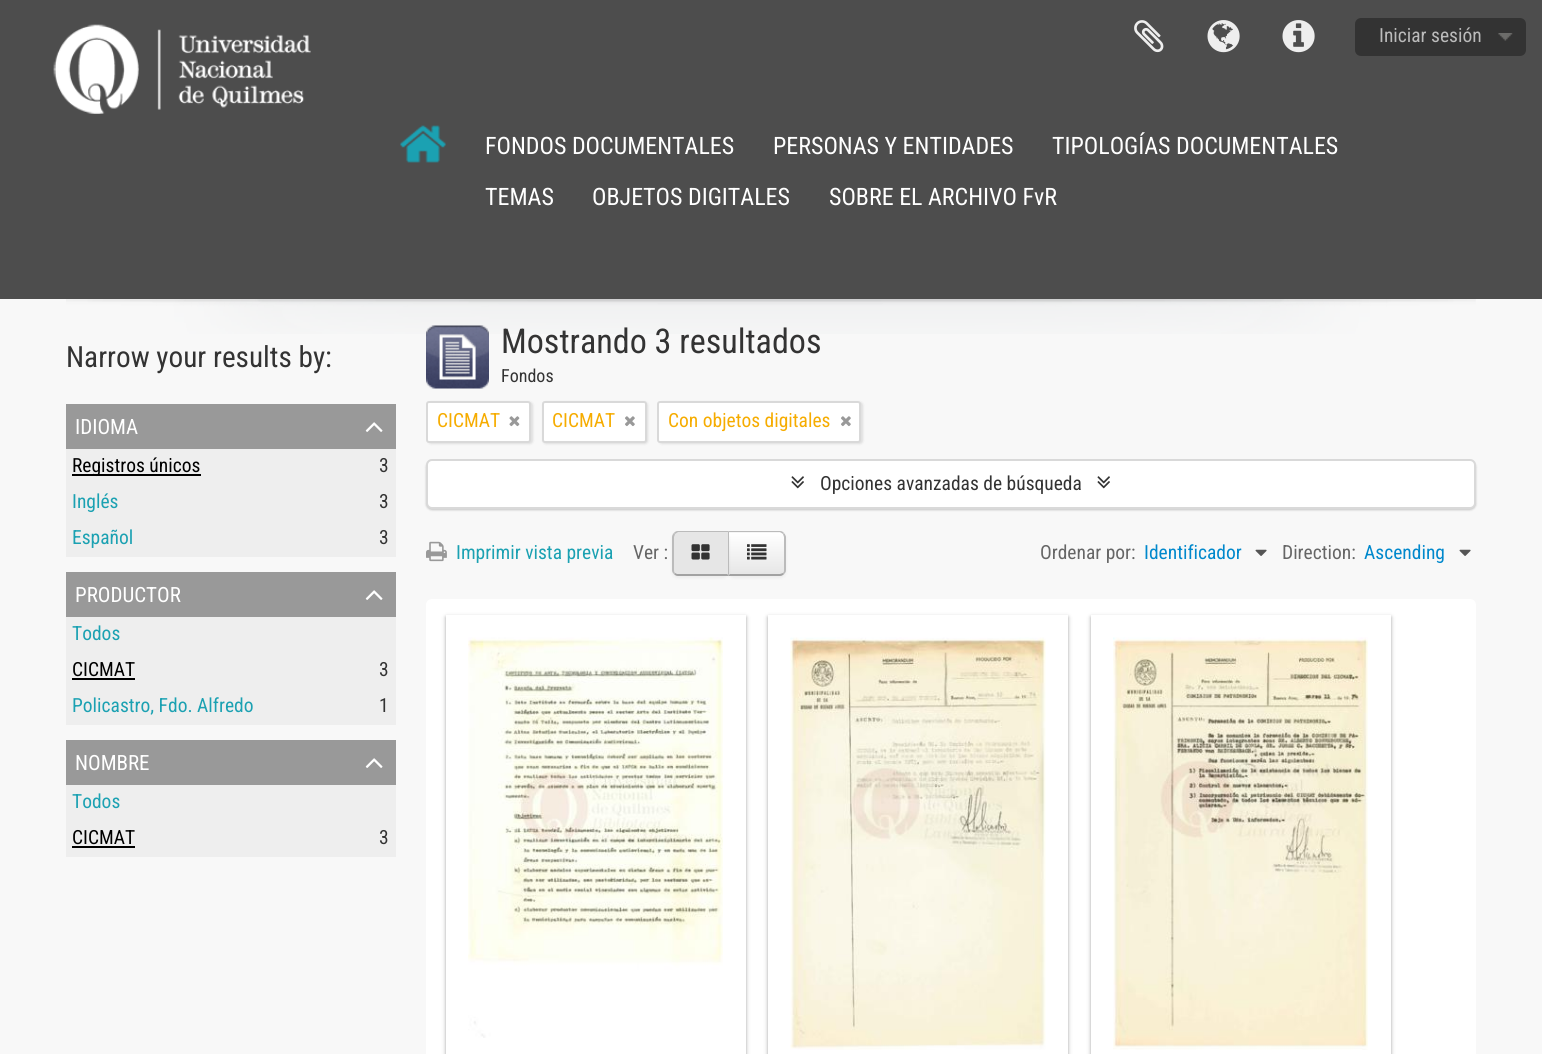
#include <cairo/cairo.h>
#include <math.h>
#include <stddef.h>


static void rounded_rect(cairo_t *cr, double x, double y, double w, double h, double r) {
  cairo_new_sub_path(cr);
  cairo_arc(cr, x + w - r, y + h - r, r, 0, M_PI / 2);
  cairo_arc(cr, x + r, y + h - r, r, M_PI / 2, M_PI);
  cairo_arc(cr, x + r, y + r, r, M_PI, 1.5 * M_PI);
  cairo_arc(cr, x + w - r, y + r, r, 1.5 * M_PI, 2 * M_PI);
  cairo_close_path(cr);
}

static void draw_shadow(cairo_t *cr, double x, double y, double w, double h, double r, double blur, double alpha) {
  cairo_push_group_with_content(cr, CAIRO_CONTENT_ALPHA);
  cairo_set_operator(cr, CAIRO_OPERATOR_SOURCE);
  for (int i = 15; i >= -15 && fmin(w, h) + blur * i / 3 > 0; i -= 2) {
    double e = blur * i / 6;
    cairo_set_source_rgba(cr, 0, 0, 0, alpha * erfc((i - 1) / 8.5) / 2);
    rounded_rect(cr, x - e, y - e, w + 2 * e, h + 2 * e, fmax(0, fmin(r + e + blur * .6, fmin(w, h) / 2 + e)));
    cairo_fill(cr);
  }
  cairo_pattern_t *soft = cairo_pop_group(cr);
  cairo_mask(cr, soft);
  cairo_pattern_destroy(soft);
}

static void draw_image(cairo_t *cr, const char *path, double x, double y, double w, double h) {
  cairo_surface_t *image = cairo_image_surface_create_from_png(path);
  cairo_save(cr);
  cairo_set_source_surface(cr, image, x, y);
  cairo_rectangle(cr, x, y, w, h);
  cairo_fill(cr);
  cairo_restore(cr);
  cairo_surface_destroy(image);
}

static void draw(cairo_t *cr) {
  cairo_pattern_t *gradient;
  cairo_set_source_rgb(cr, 248 / 255.0, 248 / 255.0, 248 / 255.0);
  cairo_paint(cr);
  cairo_set_source_rgb(cr, 77 / 255.0, 77 / 255.0, 77 / 255.0);
  cairo_rectangle(cr, 0, 0, 1542, 299);
  cairo_fill(cr);
  draw_image(cr, "images/1.png", 53, 24, 258, 90);
  draw_image(cr, "images/2.png", 1134, 20, 30, 33);
  draw_image(cr, "images/3.png", 1207, 20, 33, 33);
  draw_image(cr, "images/4.png", 1282, 20, 33, 33);
  cairo_set_source_rgb(cr, 51 / 255.0, 51 / 255.0, 51 / 255.0);
  rounded_rect(cr, 1355, 18, 171, 38, 6);
  cairo_fill(cr);
  draw_image(cr, "images/5.png", 1498, 33, 15, 8);
  draw_image(cr, "images/6.png", 400, 125, 46, 38);
  draw_image(cr, "images/7.png", 66, 299, 1410, 35);
  cairo_set_source_rgb(cr, 153 / 255.0, 153 / 255.0, 153 / 255.0);
  cairo_rectangle(cr, 66, 404, 330, 45);
  cairo_fill(cr);
  draw_image(cr, "images/8.png", 365, 422, 18, 10);
  cairo_set_source_rgb(cr, 238 / 255.0, 238 / 255.0, 238 / 255.0);
  cairo_rectangle(cr, 66, 449, 330, 108);
  cairo_fill(cr);
  cairo_set_source_rgb(cr, 0, 0, 0);
  cairo_rectangle(cr, 72, 474, 129, 2);
  cairo_fill(cr);
  cairo_set_source_rgb(cr, 153 / 255.0, 153 / 255.0, 153 / 255.0);
  cairo_rectangle(cr, 66, 572, 330, 45);
  cairo_fill(cr);
  draw_image(cr, "images/8.png", 365, 590, 18, 10);
  cairo_set_source_rgb(cr, 238 / 255.0, 238 / 255.0, 238 / 255.0);
  cairo_rectangle(cr, 66, 617, 330, 108);
  cairo_fill(cr);
  cairo_set_source_rgb(cr, 0, 0, 0);
  cairo_rectangle(cr, 72, 678, 63, 2);
  cairo_fill(cr);
  cairo_set_source_rgb(cr, 153 / 255.0, 153 / 255.0, 153 / 255.0);
  cairo_rectangle(cr, 66, 740, 330, 45);
  cairo_fill(cr);
  draw_image(cr, "images/8.png", 365, 758, 18, 10);
  cairo_set_source_rgb(cr, 238 / 255.0, 238 / 255.0, 238 / 255.0);
  cairo_rectangle(cr, 66, 785, 330, 72);
  cairo_fill(cr);
  cairo_set_source_rgb(cr, 0, 0, 0);
  cairo_rectangle(cr, 72, 846, 63, 2);
  cairo_fill(cr);
  draw_image(cr, "images/9.png", 426, 325, 63, 64);
  cairo_set_source_rgb(cr, 0, 0, 0);
  draw_shadow(cr, 428, 402, 105, 42, 3, 1, 0.1);
  cairo_set_source_rgb(cr, 1, 1, 1);
  rounded_rect(cr, 427, 402, 103, 40, 2);
  cairo_fill_preserve(cr);
  cairo_set_source_rgb(cr, 217 / 255.0, 217 / 255.0, 217 / 255.0);
  cairo_stroke(cr);
  draw_image(cr, "images/10.png", 509, 416, 11, 11);
  cairo_set_source_rgb(cr, 0, 0, 0);
  draw_shadow(cr, 543, 402, 105, 42, 3, 1, 0.1);
  cairo_set_source_rgb(cr, 1, 1, 1);
  rounded_rect(cr, 543, 402, 103, 40, 2);
  cairo_fill_preserve(cr);
  cairo_set_source_rgb(cr, 217 / 255.0, 217 / 255.0, 217 / 255.0);
  cairo_stroke(cr);
  draw_image(cr, "images/11.png", 625, 416, 10, 11);
  cairo_set_source_rgb(cr, 0, 0, 0);
  draw_shadow(cr, 659, 402, 204, 42, 3, 1, 0.1);
  cairo_set_source_rgb(cr, 1, 1, 1);
  rounded_rect(cr, 658, 402, 202, 40, 2);
  cairo_fill_preserve(cr);
  cairo_set_source_rgb(cr, 217 / 255.0, 217 / 255.0, 217 / 255.0);
  cairo_stroke(cr);
  draw_image(cr, "images/11.png", 841, 416, 10, 11);
  cairo_set_source_rgb(cr, 0, 0, 0);
  draw_shadow(cr, 426, 461, 1050, 49, 6, 1, 0.2);
  cairo_set_source_rgb(cr, 1, 1, 1);
  rounded_rect(cr, 427, 460, 1048, 48, 5);
  cairo_fill_preserve(cr);
  cairo_set_source_rgb(cr, 217 / 255.0, 217 / 255.0, 217 / 255.0);
  cairo_stroke(cr);
  draw_image(cr, "images/12.png", 791, 476, 13, 13);
  draw_image(cr, "images/12.png", 1097, 476, 13, 13);
  draw_image(cr, "images/13.png", 426, 541, 21, 21);
  cairo_set_source_rgb(cr, 0, 0, 0);
  draw_shadow(cr, 728, 533, 58, 45, 6, 1.5, 0.05);
  cairo_set_source_rgb(cr, 245 / 255.0, 245 / 255.0, 245 / 255.0);
  cairo_new_path(cr);
  cairo_move_to(cr, 728, 531);
  cairo_line_to(cr, 780, 531);
  cairo_curve_to(cr, 783.5, 531, 786, 533.5, 786, 537);
  cairo_line_to(cr, 786, 570);
  cairo_curve_to(cr, 786, 573.5, 783.5, 576, 780, 576);
  cairo_line_to(cr, 728, 576);
  cairo_close_path(cr);
  cairo_fill(cr);
  cairo_save(cr);
  cairo_new_path(cr);
  cairo_move_to(cr, 728, 531);
  cairo_line_to(cr, 780, 531);
  cairo_curve_to(cr, 783.5, 531, 786, 533.5, 786, 537);
  cairo_line_to(cr, 786, 570);
  cairo_curve_to(cr, 786, 573.5, 783.5, 576, 780, 576);
  cairo_line_to(cr, 728, 576);
  cairo_close_path(cr);
  cairo_clip(cr);
  gradient = cairo_pattern_create_linear(757, 533, 757, 575);
  cairo_pattern_add_color_stop_rgba(gradient, 0, 1, 1, 1, 1);
  cairo_pattern_add_color_stop_rgba(gradient, 1, 230 / 255.0, 230 / 255.0, 230 / 255.0, 1);
  cairo_set_source(cr, gradient);
  cairo_pattern_destroy(gradient);
  cairo_rectangle(cr, 729, 533, 57, 42);
  cairo_fill(cr);
  cairo_restore(cr);
  cairo_set_source_rgba(cr, 1, 1, 1, 0.2);
  cairo_new_path(cr);
  cairo_move_to(cr, 729, 534);
  cairo_line_to(cr, 763, 534);
  cairo_curve_to(cr, 785, 534, 784, 530, 784, 549);
  cairo_line_to(cr, 784, 573);
  cairo_curve_to(cr, 785, 572, 785, 571, 785, 570);
  cairo_line_to(cr, 785, 538);
  cairo_curve_to(cr, 785, 535, 783, 533, 780, 533);
  cairo_line_to(cr, 729, 533);
  cairo_close_path(cr);
  cairo_fill(cr);
  cairo_set_source_rgb(cr, 187 / 255.0, 187 / 255.0, 187 / 255.0);
  cairo_new_path(cr);
  cairo_move_to(cr, 728, 531);
  cairo_line_to(cr, 729, 532);
  cairo_line_to(cr, 780, 532);
  cairo_line_to(cr, 783, 534);
  cairo_line_to(cr, 784, 533);
  cairo_curve_to(cr, 783, 532, 782, 531, 780, 531);
  cairo_close_path(cr);
  cairo_fill(cr);
  cairo_new_path(cr);
  cairo_move_to(cr, 786, 570);
  cairo_line_to(cr, 786, 537);
  cairo_curve_to(cr, 786, 536, 785, 534, 784, 533);
  cairo_line_to(cr, 783, 534);
  cairo_line_to(cr, 784, 537);
  cairo_line_to(cr, 784, 570);
  cairo_curve_to(cr, 784, 571, 784, 572, 783, 573);
  cairo_line_to(cr, 784, 574);
  cairo_curve_to(cr, 785, 573, 786, 572, 786, 570);
  cairo_close_path(cr);
  cairo_fill(cr);
  cairo_set_source_rgb(cr, 162 / 255.0, 162 / 255.0, 162 / 255.0);
  cairo_new_path(cr);
  cairo_move_to(cr, 728, 576);
  cairo_line_to(cr, 780, 576);
  cairo_curve_to(cr, 782, 576, 783, 575, 784, 574);
  cairo_line_to(cr, 783, 573);
  cairo_line_to(cr, 780, 574);
  cairo_line_to(cr, 730, 574);
  cairo_close_path(cr);
  cairo_fill(cr);
  cairo_set_source_rgb(cr, 187 / 255.0, 187 / 255.0, 187 / 255.0);
  cairo_new_path(cr);
  cairo_move_to(cr, 728, 532);
  cairo_line_to(cr, 728, 576);
  cairo_line_to(cr, 730, 574);
  cairo_line_to(cr, 729, 574);
  cairo_line_to(cr, 729, 532);
  cairo_close_path(cr);
  cairo_fill(cr);
  cairo_set_source_rgb(cr, 0, 0, 0);
  draw_shadow(cr, 672, 533, 57, 45, 6, 1.5, 0.05);
  cairo_set_source_rgb(cr, 230 / 255.0, 230 / 255.0, 230 / 255.0);
  cairo_new_path(cr);
  cairo_move_to(cr, 678, 531);
  cairo_line_to(cr, 729, 531);
  cairo_line_to(cr, 729, 576);
  cairo_line_to(cr, 678, 576);
  cairo_curve_to(cr, 674.5, 576, 672, 573.5, 672, 570);
  cairo_line_to(cr, 672, 537);
  cairo_curve_to(cr, 672, 533.5, 674.5, 531, 678, 531);
  cairo_close_path(cr);
  cairo_fill(cr);
  cairo_set_source_rgb(cr, 187 / 255.0, 187 / 255.0, 187 / 255.0);
  cairo_new_path(cr);
  cairo_move_to(cr, 678, 531);
  cairo_curve_to(cr, 676, 531, 675, 532, 674, 533);
  cairo_line_to(cr, 675, 534);
  cairo_line_to(cr, 678, 532);
  cairo_line_to(cr, 728, 532);
  cairo_line_to(cr, 729, 531);
  cairo_close_path(cr);
  cairo_fill(cr);
  cairo_new_path(cr);
  cairo_move_to(cr, 729, 531);
  cairo_line_to(cr, 728, 532);
  cairo_line_to(cr, 728, 574);
  cairo_line_to(cr, 727, 574);
  cairo_line_to(cr, 729, 576);
  cairo_close_path(cr);
  cairo_fill(cr);
  cairo_set_source_rgb(cr, 162 / 255.0, 162 / 255.0, 162 / 255.0);
  cairo_new_path(cr);
  cairo_move_to(cr, 729, 576);
  cairo_line_to(cr, 727, 574);
  cairo_line_to(cr, 677, 574);
  cairo_line_to(cr, 675, 573);
  cairo_line_to(cr, 674, 574);
  cairo_curve_to(cr, 675, 575, 676, 576, 678, 576);
  cairo_close_path(cr);
  cairo_fill(cr);
  cairo_set_source_rgb(cr, 187 / 255.0, 187 / 255.0, 187 / 255.0);
  cairo_new_path(cr);
  cairo_move_to(cr, 672, 537);
  cairo_line_to(cr, 672, 570);
  cairo_curve_to(cr, 672, 572, 673, 573, 674, 574);
  cairo_line_to(cr, 675, 573);
  cairo_curve_to(cr, 674, 572, 674, 571, 674, 570);
  cairo_line_to(cr, 674, 537);
  cairo_line_to(cr, 675, 534);
  cairo_line_to(cr, 674, 533);
  cairo_curve_to(cr, 673, 534, 672, 536, 672, 537);
  cairo_close_path(cr);
  cairo_fill(cr);
  draw_image(cr, "images/14.png", 691, 544, 19, 16);
  draw_image(cr, "images/15.png", 747, 544, 20, 16);
  draw_image(cr, "images/16.png", 1255, 549, 12, 7);
  draw_image(cr, "images/16.png", 1459, 549, 12, 7);
  cairo_set_source_rgb(cr, 1, 1, 1);
  rounded_rect(cr, 426, 599, 1050, 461, 6);
  cairo_fill(cr);
  cairo_set_source_rgb(cr, 25 / 255.0, 25 / 255.0, 25 / 255.0);
  draw_shadow(cr, 446, 617, 300, 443, 0, 2, 0.4);
  cairo_set_source_rgb(cr, 1, 1, 1);
  cairo_rectangle(cr, 446, 615, 300, 439);
  cairo_fill(cr);
  draw_image(cr, "images/17.png", 468, 637, 255, 401);
  cairo_save(cr);
  cairo_set_fill_rule(cr, CAIRO_FILL_RULE_EVEN_ODD);
  cairo_new_path(cr);
  cairo_move_to(cr, 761, 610);
  cairo_line_to(cr, 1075, 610);
  cairo_line_to(cr, 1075, 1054);
  cairo_line_to(cr, 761, 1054);
  cairo_close_path(cr);
  cairo_move_to(cr, 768, 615);
  cairo_line_to(cr, 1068, 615);
  cairo_line_to(cr, 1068, 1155);
  cairo_line_to(cr, 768, 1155);
  cairo_close_path(cr);
  cairo_clip(cr);
  cairo_set_source_rgb(cr, 25 / 255.0, 25 / 255.0, 25 / 255.0);
  draw_shadow(cr, 768, 617, 300, 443, 0, 2, 0.4);
  cairo_restore(cr);
  draw_image(cr, "images/18.png", 790, 637, 256, 413);
  cairo_set_source_rgb(cr, 25 / 255.0, 25 / 255.0, 25 / 255.0);
  draw_shadow(cr, 1091, 617, 300, 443, 0, 2, 0.4);
  cairo_set_source_rgb(cr, 1, 1, 1);
  cairo_rectangle(cr, 1091, 615, 300, 439);
  cairo_fill(cr);
  draw_image(cr, "images/19.png", 1113, 637, 255, 413);
  cairo_select_font_face(cr, "Roboto Condensed", CAIRO_FONT_SLANT_NORMAL, CAIRO_FONT_WEIGHT_NORMAL);
  cairo_set_font_size(cr, 19.5);
  cairo_set_source_rgb(cr, 187 / 255.0, 187 / 255.0, 187 / 255.0);
  cairo_move_to(cr, 1379, 42);
  cairo_show_text(cr, "Iniciar sesión");
  cairo_set_font_size(cr, 24);
  cairo_set_source_rgb(cr, 1, 1, 1);
  cairo_move_to(cr, 485, 154);
  cairo_show_text(cr, "FONDOS DOCUMENTALES");
  cairo_move_to(cr, 773, 154);
  cairo_show_text(cr, "PERSONAS Y ENTIDADES");
  cairo_move_to(cr, 1052, 154);
  cairo_show_text(cr, "TIPOLOGÍAS DOCUMENTALES");
  cairo_move_to(cr, 485, 205);
  cairo_show_text(cr, "TEMAS");
  cairo_move_to(cr, 592, 205);
  cairo_show_text(cr, "OBJETOS DIGITALES");
  cairo_move_to(cr, 829, 205);
  cairo_show_text(cr, "SOBRE EL ARCHIVO FvR");
  cairo_set_font_size(cr, 29.25);
  cairo_set_source_rgb(cr, 51 / 255.0, 51 / 255.0, 51 / 255.0);
  cairo_move_to(cr, 66, 367);
  cairo_show_text(cr, "Narrow your results by:");
  cairo_set_font_size(cr, 21);
  cairo_set_source_rgb(cr, 1, 1, 1);
  cairo_move_to(cr, 75, 434);
  cairo_show_text(cr, "IDIOMA");
  cairo_set_font_size(cr, 19.5);
  cairo_set_source_rgb(cr, 0, 0, 0);
  cairo_move_to(cr, 72, 472);
  cairo_show_text(cr, "Registros únicos");
  cairo_set_source_rgb(cr, 51 / 255.0, 51 / 255.0, 51 / 255.0);
  cairo_move_to(cr, 379, 472);
  cairo_show_text(cr, "3");
  cairo_set_source_rgb(cr, 27 / 255.0, 161 / 255.0, 178 / 255.0);
  cairo_move_to(cr, 72, 508);
  cairo_show_text(cr, "Inglés");
  cairo_set_source_rgb(cr, 51 / 255.0, 51 / 255.0, 51 / 255.0);
  cairo_move_to(cr, 379, 508);
  cairo_show_text(cr, "3");
  cairo_set_source_rgb(cr, 27 / 255.0, 161 / 255.0, 178 / 255.0);
  cairo_move_to(cr, 72, 544);
  cairo_show_text(cr, "Español");
  cairo_set_source_rgb(cr, 51 / 255.0, 51 / 255.0, 51 / 255.0);
  cairo_move_to(cr, 379, 544);
  cairo_show_text(cr, "3");
  cairo_set_font_size(cr, 21);
  cairo_set_source_rgb(cr, 1, 1, 1);
  cairo_move_to(cr, 75, 602);
  cairo_show_text(cr, "PRODUCTOR");
  cairo_set_font_size(cr, 19.5);
  cairo_set_source_rgb(cr, 27 / 255.0, 161 / 255.0, 178 / 255.0);
  cairo_move_to(cr, 72, 640);
  cairo_show_text(cr, "Todos");
  cairo_set_source_rgb(cr, 0, 0, 0);
  cairo_move_to(cr, 72, 676);
  cairo_show_text(cr, "CICMAT");
  cairo_set_source_rgb(cr, 51 / 255.0, 51 / 255.0, 51 / 255.0);
  cairo_move_to(cr, 379, 676);
  cairo_show_text(cr, "3");
  cairo_set_source_rgb(cr, 27 / 255.0, 161 / 255.0, 178 / 255.0);
  cairo_move_to(cr, 72, 712);
  cairo_show_text(cr, "Policastro, Fdo. Alfredo");
  cairo_set_source_rgb(cr, 51 / 255.0, 51 / 255.0, 51 / 255.0);
  cairo_move_to(cr, 379, 712);
  cairo_show_text(cr, "1");
  cairo_set_font_size(cr, 21);
  cairo_set_source_rgb(cr, 1, 1, 1);
  cairo_move_to(cr, 75, 770);
  cairo_show_text(cr, "NOMBRE");
  cairo_set_font_size(cr, 19.5);
  cairo_set_source_rgb(cr, 27 / 255.0, 161 / 255.0, 178 / 255.0);
  cairo_move_to(cr, 72, 808);
  cairo_show_text(cr, "Todos");
  cairo_set_source_rgb(cr, 0, 0, 0);
  cairo_move_to(cr, 72, 844);
  cairo_show_text(cr, "CICMAT");
  cairo_set_source_rgb(cr, 51 / 255.0, 51 / 255.0, 51 / 255.0);
  cairo_move_to(cr, 379, 844);
  cairo_show_text(cr, "3");
  cairo_set_font_size(cr, 34.1);
  cairo_move_to(cr, 501, 353);
  cairo_show_text(cr, "Mostrando 3 resultados");
  cairo_set_font_size(cr, 18);
  cairo_move_to(cr, 501, 382);
  cairo_show_text(cr, "Fondos");
  cairo_set_font_size(cr, 19.5);
  cairo_set_source_rgb(cr, 246 / 255.0, 172 / 255.0, 0);
  cairo_move_to(cr, 437, 427);
  cairo_show_text(cr, "CICMAT");
  cairo_move_to(cr, 552, 427);
  cairo_show_text(cr, "CICMAT");
  cairo_move_to(cr, 668, 427);
  cairo_show_text(cr, "Con objetos digitales");
  cairo_set_source_rgb(cr, 51 / 255.0, 51 / 255.0, 51 / 255.0);
  cairo_move_to(cr, 820, 490);
  cairo_show_text(cr, "Opciones avanzadas de búsqueda");
  cairo_set_source_rgb(cr, 27 / 255.0, 161 / 255.0, 178 / 255.0);
  cairo_move_to(cr, 456, 559);
  cairo_show_text(cr, "Imprimir vista previa");
  cairo_set_source_rgb(cr, 102 / 255.0, 102 / 255.0, 102 / 255.0);
  cairo_move_to(cr, 633, 559);
  cairo_show_text(cr, "Ver :");
  cairo_move_to(cr, 1040, 559);
  cairo_show_text(cr, "Ordenar por:");
  cairo_set_source_rgb(cr, 0, 136 / 255.0, 204 / 255.0);
  cairo_move_to(cr, 1144, 559);
  cairo_show_text(cr, "Identificador");
  cairo_set_source_rgb(cr, 102 / 255.0, 102 / 255.0, 102 / 255.0);
  cairo_move_to(cr, 1282, 559);
  cairo_show_text(cr, "Direction:");
  cairo_set_source_rgb(cr, 0, 136 / 255.0, 204 / 255.0);
  cairo_move_to(cr, 1364, 559);
  cairo_show_text(cr, "Ascending");
}

int main(void) {
  cairo_surface_t *surface = cairo_image_surface_create(CAIRO_FORMAT_RGB24, 1542, 1054);
  cairo_t *cr = cairo_create(surface);
  cairo_font_options_t *options = cairo_font_options_create();
  cairo_font_options_set_hint_metrics(options, CAIRO_HINT_METRICS_OFF);
  cairo_font_options_set_hint_style(options, CAIRO_HINT_STYLE_NONE);
  cairo_set_font_options(cr, options);
  cairo_set_miter_limit(cr, 4);
  draw(cr);
  cairo_surface_write_to_png(surface, "out.png");
  cairo_font_options_destroy(options);
  cairo_destroy(cr);
  cairo_surface_destroy(surface);
  return 0;
}
